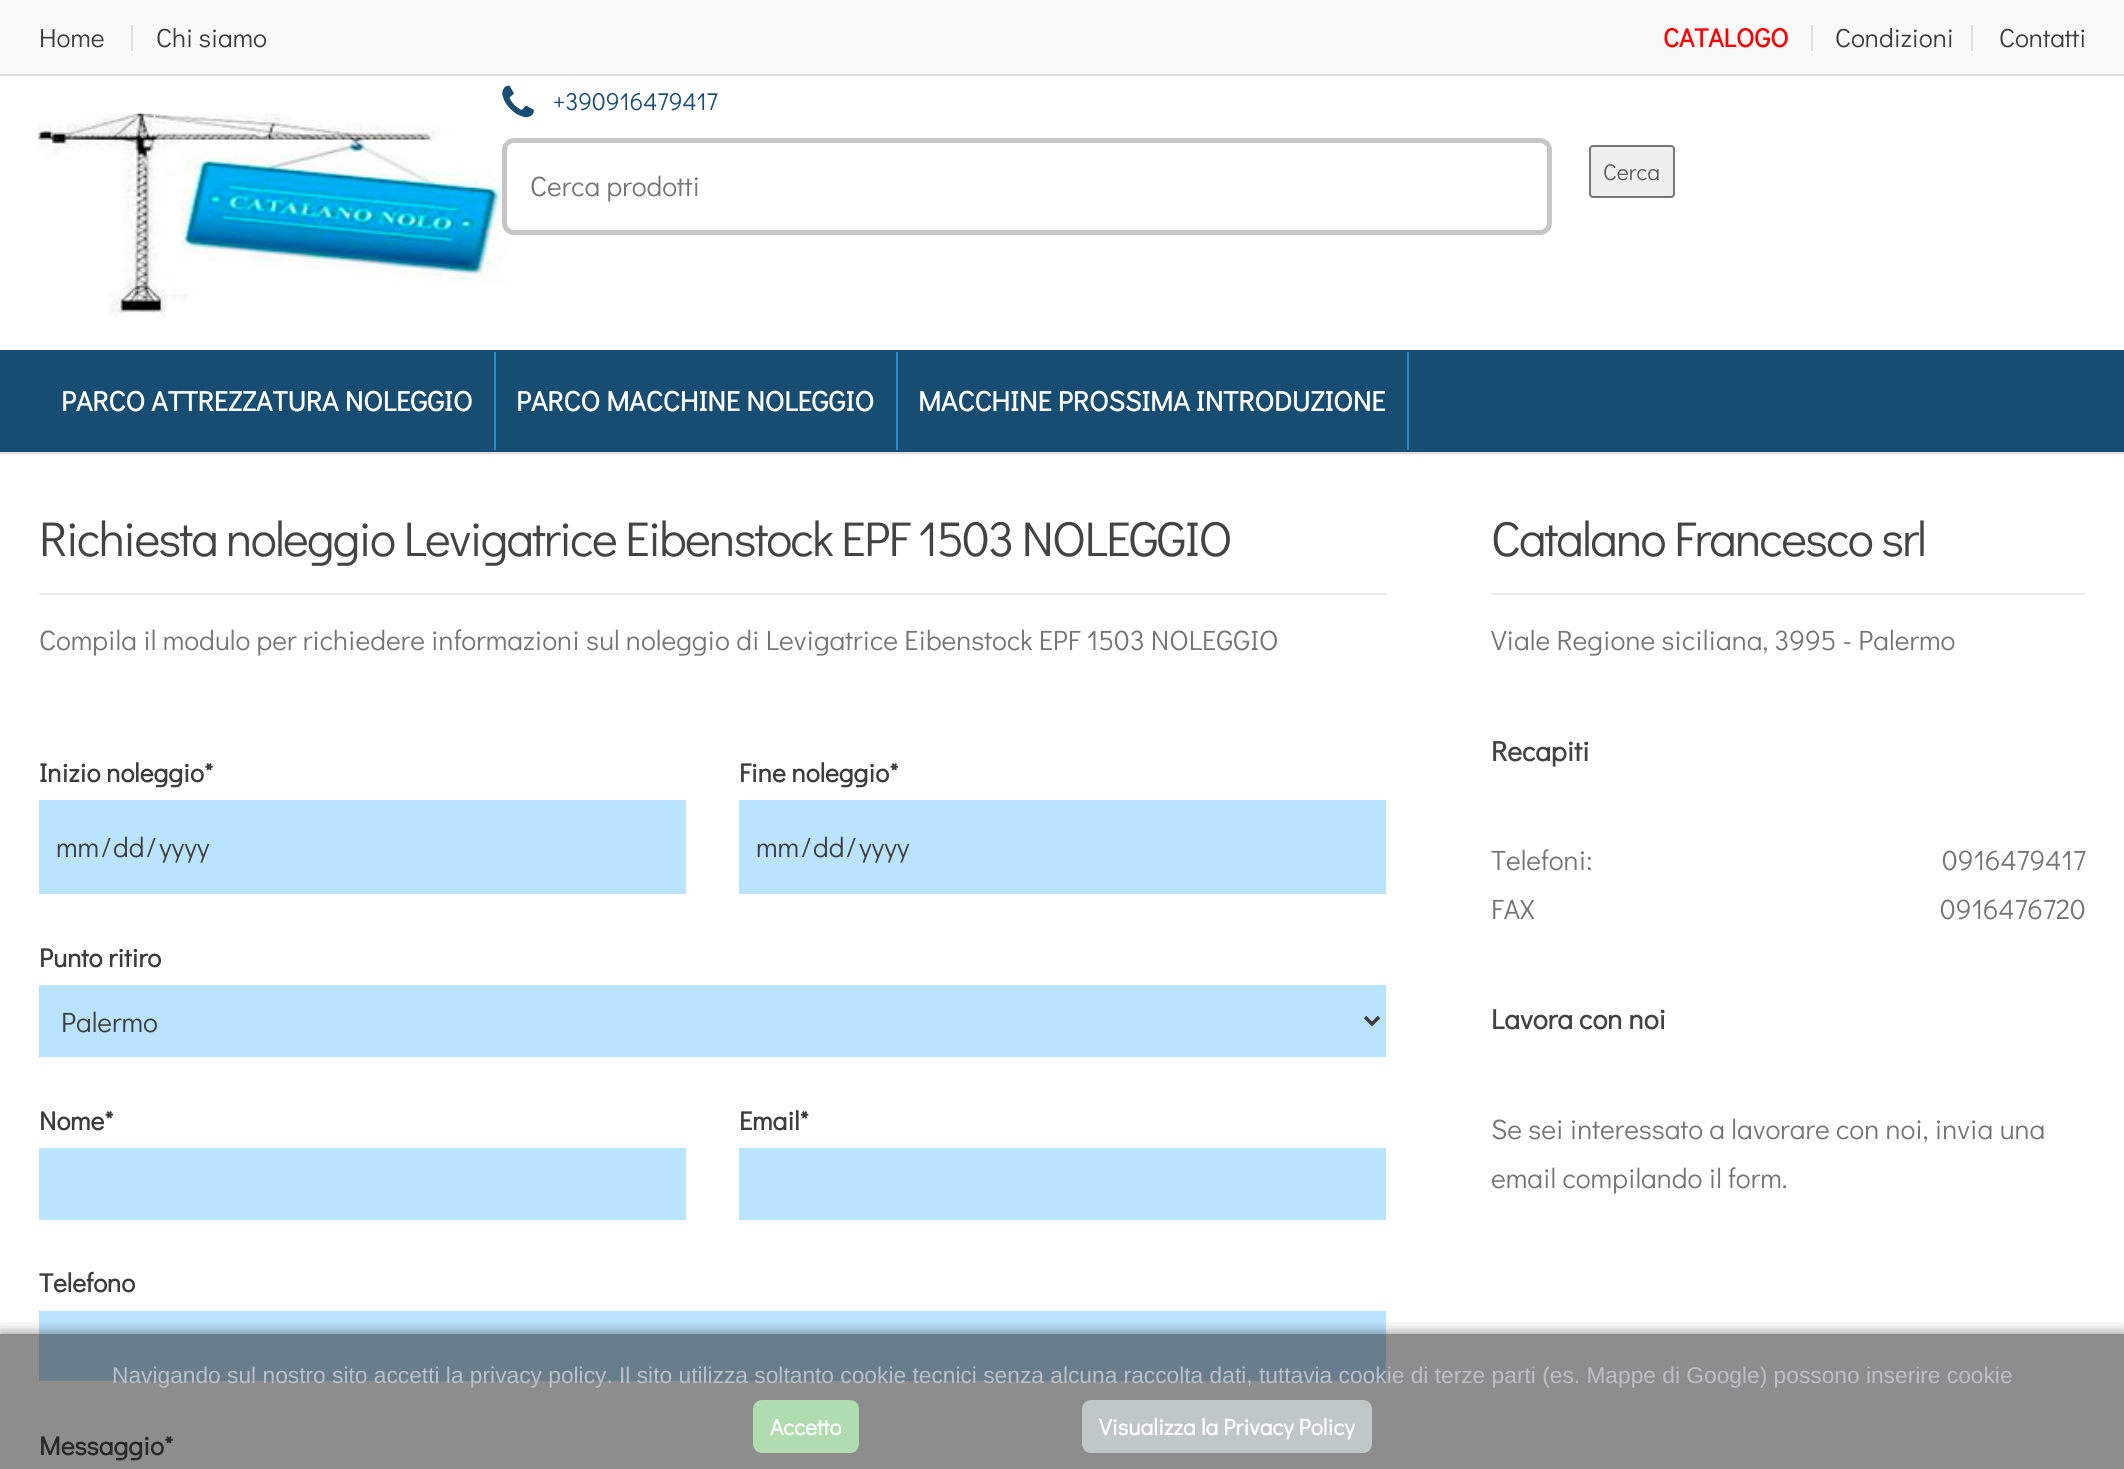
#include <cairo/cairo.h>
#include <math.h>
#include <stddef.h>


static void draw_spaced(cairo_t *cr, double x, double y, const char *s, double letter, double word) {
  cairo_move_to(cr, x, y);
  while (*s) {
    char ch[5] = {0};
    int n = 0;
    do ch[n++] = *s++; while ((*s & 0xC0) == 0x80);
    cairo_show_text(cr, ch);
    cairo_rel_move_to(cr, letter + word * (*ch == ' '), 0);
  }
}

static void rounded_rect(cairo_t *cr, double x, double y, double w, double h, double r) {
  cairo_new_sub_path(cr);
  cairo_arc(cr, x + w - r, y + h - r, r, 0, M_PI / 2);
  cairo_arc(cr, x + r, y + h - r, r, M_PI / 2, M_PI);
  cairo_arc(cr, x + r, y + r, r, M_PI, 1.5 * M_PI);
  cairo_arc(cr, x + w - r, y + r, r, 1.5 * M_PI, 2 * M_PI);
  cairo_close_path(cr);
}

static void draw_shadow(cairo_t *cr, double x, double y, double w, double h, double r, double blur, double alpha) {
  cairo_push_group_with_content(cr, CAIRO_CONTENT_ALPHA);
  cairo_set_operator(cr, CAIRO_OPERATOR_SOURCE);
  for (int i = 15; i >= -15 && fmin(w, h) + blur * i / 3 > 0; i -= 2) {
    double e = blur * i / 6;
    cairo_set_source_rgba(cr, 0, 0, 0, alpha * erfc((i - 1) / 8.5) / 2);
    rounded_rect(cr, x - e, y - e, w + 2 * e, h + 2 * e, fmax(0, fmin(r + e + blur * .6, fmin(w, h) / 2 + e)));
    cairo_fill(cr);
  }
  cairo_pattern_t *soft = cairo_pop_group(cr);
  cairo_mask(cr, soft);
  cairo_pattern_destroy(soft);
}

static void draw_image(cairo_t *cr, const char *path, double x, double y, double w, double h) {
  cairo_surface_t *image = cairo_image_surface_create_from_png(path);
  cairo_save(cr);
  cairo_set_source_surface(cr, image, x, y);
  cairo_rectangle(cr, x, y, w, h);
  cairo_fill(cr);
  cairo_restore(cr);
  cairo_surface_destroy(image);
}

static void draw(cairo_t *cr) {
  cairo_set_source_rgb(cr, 1, 1, 1);
  cairo_paint(cr);
  cairo_set_source_rgb(cr, 141 / 255.0, 141 / 255.0, 141 / 255.0);
  cairo_rectangle(cr, 0, 1334, 2124, 135);
  cairo_fill(cr);
  cairo_set_source_rgb(cr, 249 / 255.0, 249 / 255.0, 249 / 255.0);
  cairo_rectangle(cr, 0, 0, 2124, 74);
  cairo_fill(cr);
  cairo_set_source_rgb(cr, 224 / 255.0, 224 / 255.0, 224 / 255.0);
  cairo_rectangle(cr, 0, 74, 2124, 2);
  cairo_fill(cr);
  cairo_rectangle(cr, 131, 25, 2, 26);
  cairo_fill(cr);
  cairo_rectangle(cr, 1811, 25, 2, 26);
  cairo_fill(cr);
  cairo_rectangle(cr, 1971, 25, 2, 26);
  cairo_fill(cr);
  cairo_rectangle(cr, 0, 452, 2124, 2);
  cairo_fill(cr);
  draw_image(cr, "images/1.png", 38, 113, 473, 204);
  draw_image(cr, "images/2.png", 502, 85, 32, 33);
  rounded_rect(cr, 504.5, 140.5, 1045, 92, 9.5);
  cairo_set_source_rgb(cr, 198 / 255.0, 198 / 255.0, 198 / 255.0);
  cairo_set_line_width(cr, 5);
  cairo_stroke(cr);
  cairo_set_source_rgb(cr, 1, 1, 1);
  cairo_new_path(cr);
  cairo_move_to(cr, 517, 144);
  cairo_line_to(cr, 1183, 144);
  cairo_line_to(cr, 1183, 229);
  cairo_line_to(cr, 517, 229);
  cairo_curve_to(cr, 512, 229, 508, 225, 508, 220);
  cairo_line_to(cr, 508, 153);
  cairo_curve_to(cr, 508, 148, 512, 144, 517, 144);
  cairo_close_path(cr);
  cairo_fill(cr);
  cairo_set_source_rgb(cr, 239 / 255.0, 239 / 255.0, 239 / 255.0);
  rounded_rect(cr, 1590, 146, 84, 51, 3);
  cairo_fill_preserve(cr);
  cairo_set_source_rgb(cr, 118 / 255.0, 118 / 255.0, 118 / 255.0);
  cairo_set_line_width(cr, 2);
  cairo_stroke(cr);
  cairo_set_source_rgb(cr, 23 / 255.0, 77 / 255.0, 115 / 255.0);
  cairo_rectangle(cr, 0, 350, 2124, 102);
  cairo_fill(cr);
  cairo_set_source_rgb(cr, 37 / 255.0, 140 / 255.0, 209 / 255.0);
  cairo_rectangle(cr, 494, 352, 2, 98);
  cairo_fill(cr);
  cairo_rectangle(cr, 896, 352, 2, 98);
  cairo_fill(cr);
  cairo_rectangle(cr, 1407, 352, 2, 98);
  cairo_fill(cr);
  cairo_set_source_rgb(cr, 236 / 255.0, 236 / 255.0, 236 / 255.0);
  cairo_rectangle(cr, 39, 593, 1347, 2);
  cairo_fill(cr);
  cairo_set_source_rgb(cr, 186 / 255.0, 227 / 255.0, 1);
  cairo_rectangle(cr, 39, 800, 647, 94);
  cairo_fill(cr);
  cairo_rectangle(cr, 739, 800, 647, 94);
  cairo_fill(cr);
  cairo_rectangle(cr, 39, 985, 1347, 72);
  cairo_fill(cr);
  cairo_new_path(cr);
  cairo_move_to(cr, 1365, 1017);
  cairo_line_to(cr, 1372, 1024);
  cairo_line_to(cr, 1379, 1017);
  cairo_set_source_rgb(cr, 61 / 255.0, 61 / 255.0, 61 / 255.0);
  cairo_set_line_width(cr, 3.5);
  cairo_stroke(cr);
  cairo_set_source_rgb(cr, 186 / 255.0, 227 / 255.0, 1);
  cairo_rectangle(cr, 39, 1148, 647, 72);
  cairo_fill(cr);
  cairo_rectangle(cr, 739, 1148, 647, 72);
  cairo_fill(cr);
  cairo_rectangle(cr, 39, 1311, 1347, 23);
  cairo_fill(cr);
  cairo_set_source_rgb(cr, 105 / 255.0, 126 / 255.0, 141 / 255.0);
  cairo_rectangle(cr, 39, 1334, 1347, 47);
  cairo_fill(cr);
  cairo_set_source_rgb(cr, 236 / 255.0, 236 / 255.0, 236 / 255.0);
  cairo_rectangle(cr, 1491, 593, 595, 2);
  cairo_fill(cr);
  cairo_save(cr);
  cairo_rectangle(cr, 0, 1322, 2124, 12);
  cairo_clip(cr);
  cairo_set_source_rgb(cr, 0, 0, 0);
  draw_shadow(cr, 0, 1334, 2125, 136, 0, 7, 0.48);
  cairo_restore(cr);
  cairo_set_source_rgb(cr, 176 / 255.0, 220 / 255.0, 176 / 255.0);
  rounded_rect(cr, 753, 1400, 106, 53, 9);
  cairo_fill(cr);
  cairo_set_source_rgb(cr, 191 / 255.0, 199 / 255.0, 199 / 255.0);
  rounded_rect(cr, 1082, 1400, 290, 53, 9);
  cairo_fill(cr);
  cairo_select_font_face(cr, "Didact Gothic", CAIRO_FONT_SLANT_NORMAL, CAIRO_FONT_WEIGHT_NORMAL);
  cairo_set_font_size(cr, 26.25);
  cairo_set_source_rgb(cr, 61 / 255.0, 61 / 255.0, 61 / 255.0);
  cairo_move_to(cr, 39, 47);
  cairo_show_text(cr, "Home");
  cairo_move_to(cr, 156, 47);
  cairo_show_text(cr, "Chi siamo");
  cairo_select_font_face(cr, "Didact Gothic", CAIRO_FONT_SLANT_NORMAL, CAIRO_FONT_WEIGHT_BOLD);
  cairo_set_source_rgb(cr, 1, 0, 0);
  cairo_move_to(cr, 1663, 47);
  cairo_show_text(cr, "CATALOGO");
  cairo_select_font_face(cr, "Didact Gothic", CAIRO_FONT_SLANT_NORMAL, CAIRO_FONT_WEIGHT_NORMAL);
  cairo_set_source_rgb(cr, 61 / 255.0, 61 / 255.0, 61 / 255.0);
  cairo_move_to(cr, 1835, 47);
  cairo_show_text(cr, "Condizioni");
  cairo_move_to(cr, 1999, 47);
  cairo_show_text(cr, "Contatti");
  cairo_set_font_size(cr, 24.5);
  cairo_set_source_rgb(cr, 23 / 255.0, 77 / 255.0, 115 / 255.0);
  cairo_move_to(cr, 553, 110);
  cairo_show_text(cr, "+390916479417");
  cairo_set_font_size(cr, 28);
  cairo_set_source_rgb(cr, 117 / 255.0, 117 / 255.0, 117 / 255.0);
  cairo_move_to(cr, 530, 196);
  cairo_show_text(cr, "Cerca prodotti");
  cairo_set_font_size(cr, 22.75);
  cairo_set_source_rgb(cr, 93 / 255.0, 93 / 255.0, 93 / 255.0);
  cairo_move_to(cr, 1603, 180);
  cairo_show_text(cr, "Cerca");
  cairo_select_font_face(cr, "Didact Gothic", CAIRO_FONT_SLANT_NORMAL, CAIRO_FONT_WEIGHT_BOLD);
  cairo_set_font_size(cr, 28);
  cairo_set_source_rgb(cr, 1, 1, 1);
  cairo_move_to(cr, 61, 411);
  cairo_show_text(cr, "PARCO ATTREZZATURA NOLEGGIO");
  cairo_move_to(cr, 516, 411);
  cairo_show_text(cr, "PARCO MACCHINE NOLEGGIO");
  cairo_move_to(cr, 918, 411);
  cairo_show_text(cr, "MACCHINE PROSSIMA INTRODUZIONE");
  cairo_select_font_face(cr, "Didact Gothic", CAIRO_FONT_SLANT_NORMAL, CAIRO_FONT_WEIGHT_NORMAL);
  cairo_set_font_size(cr, 49);
  cairo_set_source_rgb(cr, 67 / 255.0, 67 / 255.0, 67 / 255.0);
  draw_spaced(cr, 39, 556, "Richiesta noleggio Levigatrice Eibenstock EPF 1503 NOLEGGIO", -1.75, 0);
  cairo_set_font_size(cr, 28);
  cairo_set_source_rgb(cr, 117 / 255.0, 117 / 255.0, 117 / 255.0);
  cairo_move_to(cr, 39, 650);
  cairo_show_text(cr, "Compila il modulo per richiedere informazioni sul noleggio di Levigatrice Eibenstock EPF 1503 NOLEGGIO");
  cairo_select_font_face(cr, "Didact Gothic", CAIRO_FONT_SLANT_NORMAL, CAIRO_FONT_WEIGHT_BOLD);
  cairo_set_font_size(cr, 26.25);
  cairo_set_source_rgb(cr, 61 / 255.0, 61 / 255.0, 61 / 255.0);
  cairo_move_to(cr, 39, 782);
  cairo_show_text(cr, "Inizio noleggio*");
  cairo_select_font_face(cr, "Didact Gothic", CAIRO_FONT_SLANT_NORMAL, CAIRO_FONT_WEIGHT_NORMAL);
  cairo_set_font_size(cr, 28);
  cairo_move_to(cr, 56, 857);
  cairo_show_text(cr, "mm");
  cairo_move_to(cr, 101, 857);
  cairo_show_text(cr, "/");
  cairo_move_to(cr, 113, 857);
  cairo_show_text(cr, "dd");
  cairo_move_to(cr, 146, 857);
  cairo_show_text(cr, "/");
  cairo_move_to(cr, 159, 857);
  cairo_show_text(cr, "yyyy");
  cairo_select_font_face(cr, "Didact Gothic", CAIRO_FONT_SLANT_NORMAL, CAIRO_FONT_WEIGHT_BOLD);
  cairo_set_font_size(cr, 26.25);
  cairo_move_to(cr, 739, 782);
  cairo_show_text(cr, "Fine noleggio*");
  cairo_select_font_face(cr, "Didact Gothic", CAIRO_FONT_SLANT_NORMAL, CAIRO_FONT_WEIGHT_NORMAL);
  cairo_set_font_size(cr, 28);
  cairo_move_to(cr, 756, 857);
  cairo_show_text(cr, "mm");
  cairo_move_to(cr, 801, 857);
  cairo_show_text(cr, "/");
  cairo_move_to(cr, 813, 857);
  cairo_show_text(cr, "dd");
  cairo_move_to(cr, 846, 857);
  cairo_show_text(cr, "/");
  cairo_move_to(cr, 859, 857);
  cairo_show_text(cr, "yyyy");
  cairo_select_font_face(cr, "Didact Gothic", CAIRO_FONT_SLANT_NORMAL, CAIRO_FONT_WEIGHT_BOLD);
  cairo_set_font_size(cr, 26.25);
  cairo_move_to(cr, 39, 967);
  cairo_show_text(cr, "Punto ritiro");
  cairo_select_font_face(cr, "Didact Gothic", CAIRO_FONT_SLANT_NORMAL, CAIRO_FONT_WEIGHT_NORMAL);
  cairo_set_font_size(cr, 28);
  cairo_move_to(cr, 61, 1032);
  cairo_show_text(cr, "Palermo");
  cairo_select_font_face(cr, "Didact Gothic", CAIRO_FONT_SLANT_NORMAL, CAIRO_FONT_WEIGHT_BOLD);
  cairo_set_font_size(cr, 26.25);
  cairo_move_to(cr, 39, 1130);
  cairo_show_text(cr, "Nome*");
  cairo_move_to(cr, 739, 1130);
  cairo_show_text(cr, "Email*");
  cairo_move_to(cr, 39, 1292);
  cairo_show_text(cr, "Telefono");
  cairo_set_source_rgb(cr, 40 / 255.0, 40 / 255.0, 40 / 255.0);
  cairo_move_to(cr, 39, 1455);
  cairo_show_text(cr, "Messaggio*");
  cairo_select_font_face(cr, "Didact Gothic", CAIRO_FONT_SLANT_NORMAL, CAIRO_FONT_WEIGHT_NORMAL);
  cairo_set_font_size(cr, 49);
  cairo_set_source_rgb(cr, 67 / 255.0, 67 / 255.0, 67 / 255.0);
  draw_spaced(cr, 1491, 556, "Catalano Francesco srl", -1.75, 0);
  cairo_set_font_size(cr, 28);
  cairo_set_source_rgb(cr, 117 / 255.0, 117 / 255.0, 117 / 255.0);
  cairo_move_to(cr, 1491, 650);
  cairo_show_text(cr, "Viale Regione siciliana, 3995 - Palermo");
  cairo_select_font_face(cr, "Didact Gothic", CAIRO_FONT_SLANT_NORMAL, CAIRO_FONT_WEIGHT_BOLD);
  cairo_set_source_rgb(cr, 67 / 255.0, 67 / 255.0, 67 / 255.0);
  cairo_move_to(cr, 1491, 761);
  cairo_show_text(cr, "Recapiti");
  cairo_select_font_face(cr, "Didact Gothic", CAIRO_FONT_SLANT_NORMAL, CAIRO_FONT_WEIGHT_NORMAL);
  cairo_set_source_rgb(cr, 117 / 255.0, 117 / 255.0, 117 / 255.0);
  cairo_move_to(cr, 1491, 870);
  cairo_show_text(cr, "Telefoni:");
  cairo_move_to(cr, 1942, 870);
  cairo_show_text(cr, "0916479417");
  cairo_move_to(cr, 1491, 919);
  cairo_show_text(cr, "FAX");
  cairo_move_to(cr, 1940, 919);
  cairo_show_text(cr, "0916476720");
  cairo_select_font_face(cr, "Didact Gothic", CAIRO_FONT_SLANT_NORMAL, CAIRO_FONT_WEIGHT_BOLD);
  cairo_set_source_rgb(cr, 67 / 255.0, 67 / 255.0, 67 / 255.0);
  cairo_move_to(cr, 1491, 1029);
  cairo_show_text(cr, "Lavora con noi");
  cairo_select_font_face(cr, "Didact Gothic", CAIRO_FONT_SLANT_NORMAL, CAIRO_FONT_WEIGHT_NORMAL);
  cairo_set_source_rgb(cr, 117 / 255.0, 117 / 255.0, 117 / 255.0);
  cairo_move_to(cr, 1491, 1139);
  cairo_show_text(cr, "Se sei interessato a lavorare con noi, invia una");
  cairo_move_to(cr, 1491, 1188);
  cairo_show_text(cr, "email compilando il form.");
  cairo_select_font_face(cr, "Liberation Sans", CAIRO_FONT_SLANT_NORMAL, CAIRO_FONT_WEIGHT_NORMAL);
  cairo_set_font_size(cr, 22.75);
  cairo_set_source_rgb(cr, 186 / 255.0, 192 / 255.0, 196 / 255.0);
  cairo_move_to(cr, 112, 1383);
  cairo_show_text(cr, "Navigando sul nostro sito accetti la privacy policy. Il sito utilizza soltanto cookie tecnici senza alcuna raccolta dati, tuttavia cookie di terze parti (es. Mappe di Google) possono inserire cookie");
  cairo_select_font_face(cr, "Didact Gothic", CAIRO_FONT_SLANT_NORMAL, CAIRO_FONT_WEIGHT_BOLD);
  cairo_set_source_rgb(cr, 1, 1, 1);
  cairo_move_to(cr, 770, 1435);
  cairo_show_text(cr, "Accetto");
  cairo_move_to(cr, 1099, 1435);
  cairo_show_text(cr, "Visualizza la Privacy Policy");
}

int main(void) {
  cairo_surface_t *surface = cairo_image_surface_create(CAIRO_FORMAT_RGB24, 2124, 1469);
  cairo_t *cr = cairo_create(surface);
  cairo_font_options_t *options = cairo_font_options_create();
  cairo_font_options_set_hint_metrics(options, CAIRO_HINT_METRICS_OFF);
  cairo_font_options_set_hint_style(options, CAIRO_HINT_STYLE_NONE);
  cairo_set_font_options(cr, options);
  cairo_set_miter_limit(cr, 4);
  draw(cr);
  cairo_surface_write_to_png(surface, "out.png");
  cairo_font_options_destroy(options);
  cairo_destroy(cr);
  cairo_surface_destroy(surface);
  return 0;
}
